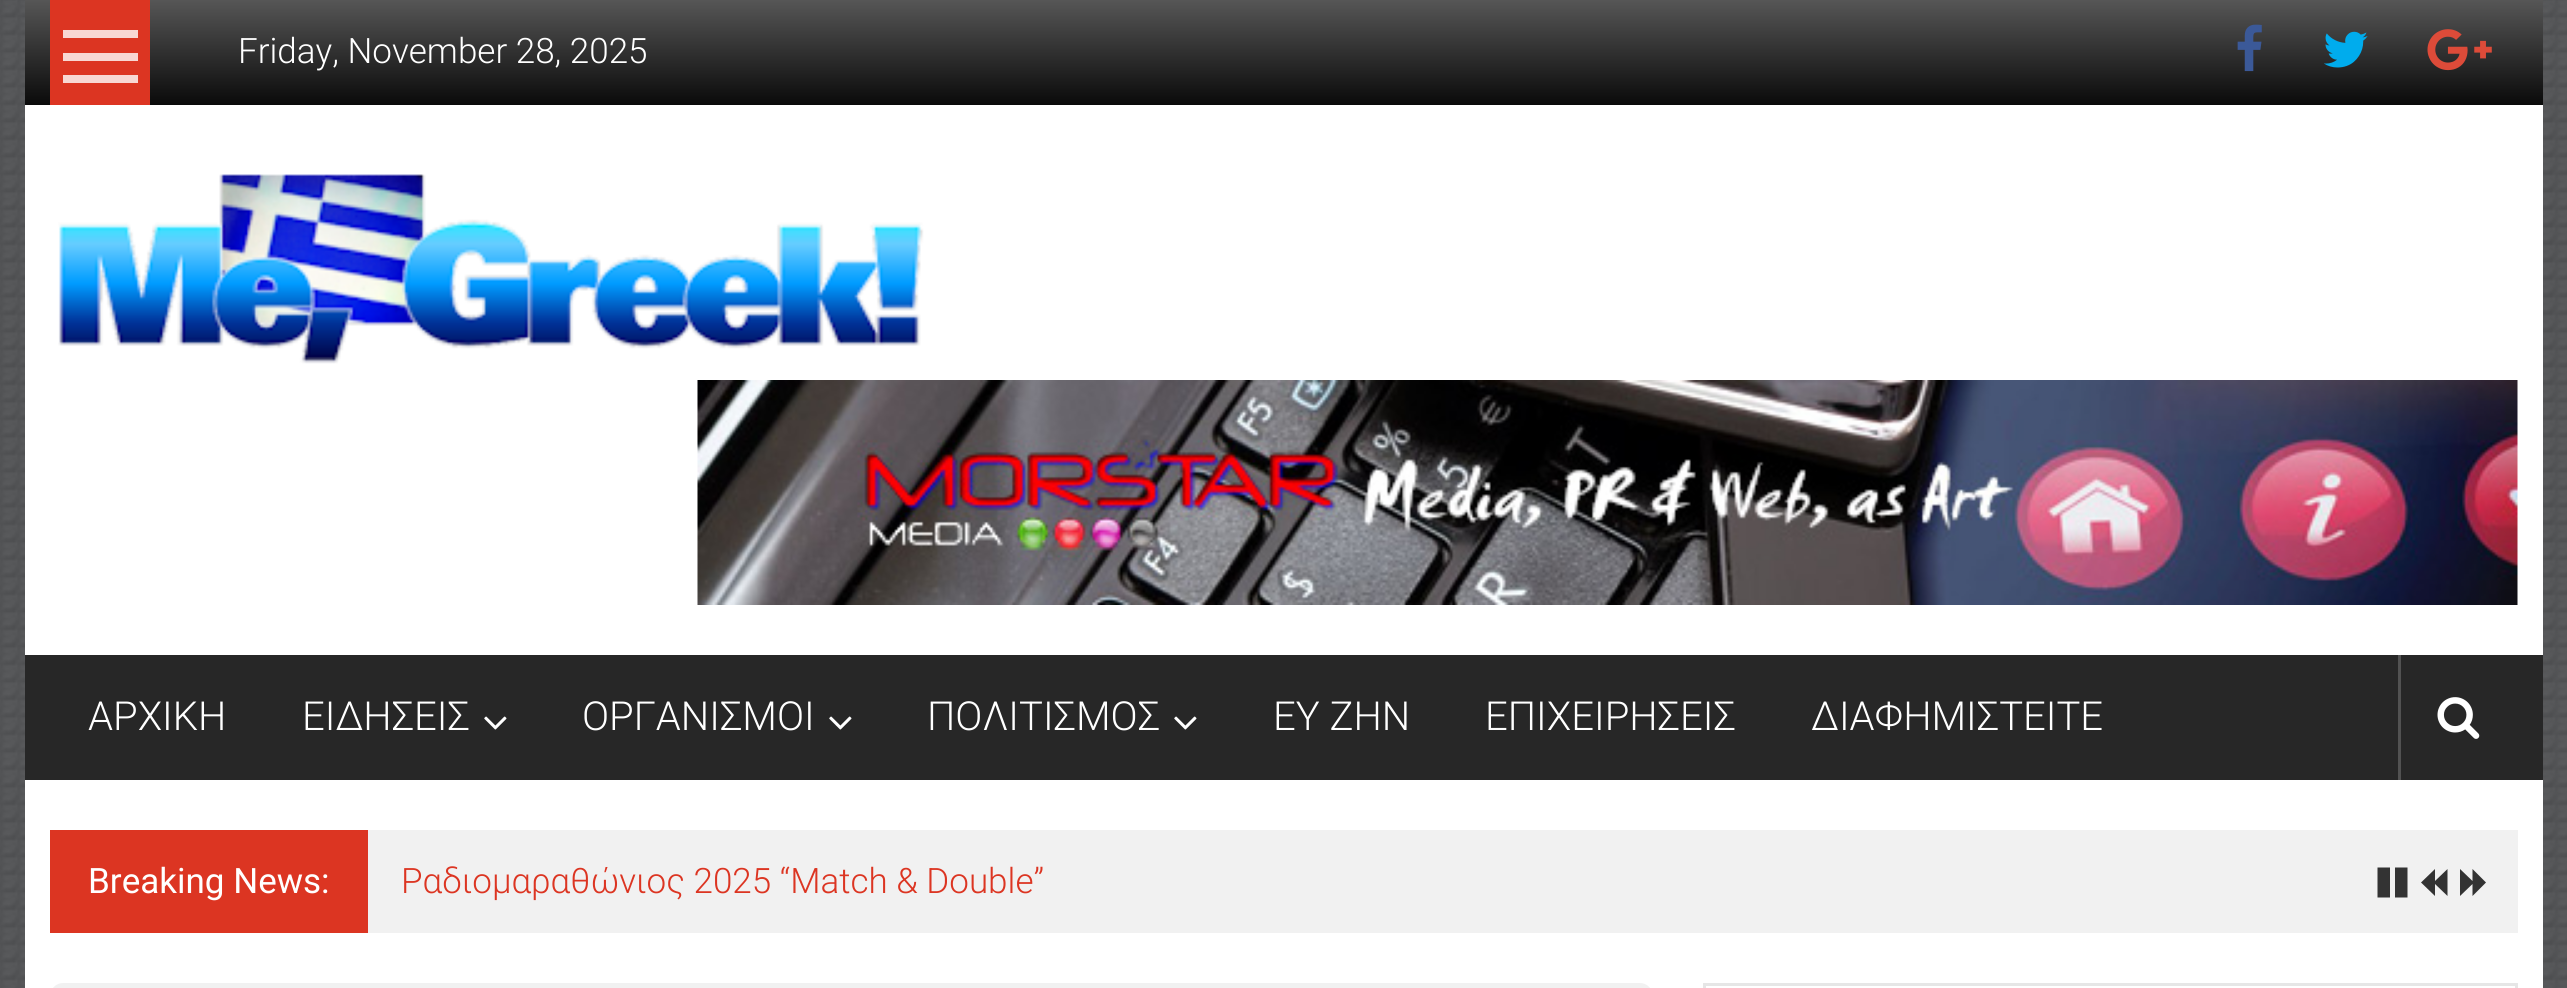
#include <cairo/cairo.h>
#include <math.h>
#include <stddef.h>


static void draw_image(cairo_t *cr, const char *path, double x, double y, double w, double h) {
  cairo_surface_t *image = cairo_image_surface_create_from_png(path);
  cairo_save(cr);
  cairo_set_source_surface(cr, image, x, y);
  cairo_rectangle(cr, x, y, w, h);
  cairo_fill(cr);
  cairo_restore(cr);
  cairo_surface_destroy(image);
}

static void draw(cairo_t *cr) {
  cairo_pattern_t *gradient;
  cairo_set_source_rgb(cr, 1, 1, 1);
  cairo_paint(cr);
  draw_image(cr, "images/1.png", 0, 0, 2567, 988);
  cairo_set_source_rgb(cr, 1, 1, 1);
  cairo_rectangle(cr, 25, 105, 2518, 883);
  cairo_fill(cr);
  gradient = cairo_pattern_create_linear(1284, 0, 1284, 105);
  cairo_pattern_add_color_stop_rgba(gradient, 0, 86 / 255.0, 86 / 255.0, 86 / 255.0, 1);
  cairo_pattern_add_color_stop_rgba(gradient, 1, 10 / 255.0, 10 / 255.0, 10 / 255.0, 1);
  cairo_set_source(cr, gradient);
  cairo_pattern_destroy(gradient);
  cairo_rectangle(cr, 25, 0, 2518, 105);
  cairo_fill(cr);
  cairo_set_source_rgb(cr, 220 / 255.0, 53 / 255.0, 34 / 255.0);
  cairo_rectangle(cr, 50, 0, 100, 105);
  cairo_fill(cr);
  cairo_set_source_rgb(cr, 248 / 255.0, 215 / 255.0, 211 / 255.0);
  cairo_rectangle(cr, 63, 30, 75, 8);
  cairo_fill(cr);
  cairo_rectangle(cr, 63, 53, 75, 8);
  cairo_fill(cr);
  cairo_rectangle(cr, 63, 75, 75, 8);
  cairo_fill(cr);
  draw_image(cr, "images/2.png", 2237, 24, 25, 48);
  draw_image(cr, "images/3.png", 2324, 31, 44, 37);
  draw_image(cr, "images/4.png", 2427, 29, 65, 42);
  draw_image(cr, "images/5.png", 58, 174, 866, 190);
  draw_image(cr, "images/6.png", 697, 380, 1821, 225);
  cairo_set_source_rgb(cr, 39 / 255.0, 39 / 255.0, 39 / 255.0);
  cairo_rectangle(cr, 25, 655, 2518, 125);
  cairo_fill(cr);
  draw_image(cr, "images/7.png", 484, 716, 23, 14);
  draw_image(cr, "images/7.png", 829, 716, 23, 14);
  draw_image(cr, "images/7.png", 1174, 716, 23, 14);
  cairo_set_source_rgb(cr, 82 / 255.0, 82 / 255.0, 82 / 255.0);
  cairo_rectangle(cr, 2398, 655, 3, 125);
  cairo_fill(cr);
  draw_image(cr, "images/8.png", 2437, 697, 43, 42);
  cairo_set_source_rgb(cr, 241 / 255.0, 241 / 255.0, 241 / 255.0);
  cairo_rectangle(cr, 368, 830, 2150, 103);
  cairo_fill(cr);
  cairo_set_source_rgb(cr, 220 / 255.0, 53 / 255.0, 34 / 255.0);
  cairo_rectangle(cr, 50, 830, 318, 103);
  cairo_fill(cr);
  cairo_set_source_rgb(cr, 51 / 255.0, 51 / 255.0, 51 / 255.0);
  cairo_new_path(cr);
  cairo_move_to(cr, 2377.5, 867.5);
  cairo_line_to(cr, 2390, 867.5);
  cairo_line_to(cr, 2390, 897.5);
  cairo_line_to(cr, 2377.5, 897.5);
  cairo_close_path(cr);
  cairo_move_to(cr, 2395, 867.5);
  cairo_line_to(cr, 2407.5, 867.5);
  cairo_line_to(cr, 2407.5, 897.5);
  cairo_line_to(cr, 2395, 897.5);
  cairo_close_path(cr);
  cairo_fill(cr);
  cairo_new_path(cr);
  cairo_move_to(cr, 2435, 869);
  cairo_line_to(cr, 2435, 881);
  cairo_line_to(cr, 2447.5, 869);
  cairo_line_to(cr, 2447.5, 896);
  cairo_line_to(cr, 2435, 884);
  cairo_line_to(cr, 2435, 896);
  cairo_line_to(cr, 2421, 882.5);
  cairo_close_path(cr);
  cairo_fill(cr);
  cairo_new_path(cr);
  cairo_move_to(cr, 2472.5, 896);
  cairo_line_to(cr, 2472.5, 884);
  cairo_line_to(cr, 2460, 896);
  cairo_line_to(cr, 2460, 869);
  cairo_line_to(cr, 2472.5, 881);
  cairo_line_to(cr, 2472.5, 869);
  cairo_line_to(cr, 2486, 882.5);
  cairo_close_path(cr);
  cairo_fill(cr);
  cairo_set_source_rgb(cr, 241 / 255.0, 241 / 255.0, 241 / 255.0);
  cairo_new_path(cr);
  cairo_move_to(cr, 63, 983);
  cairo_line_to(cr, 1640, 983);
  cairo_curve_to(cr, 1647, 983, 1653, 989, 1653, 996);
  cairo_line_to(cr, 1653, 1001);
  cairo_line_to(cr, 50, 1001);
  cairo_line_to(cr, 50, 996);
  cairo_curve_to(cr, 50, 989, 56, 983, 63, 983);
  cairo_close_path(cr);
  cairo_fill(cr);
  cairo_rectangle(cr, 1704.5, 984.5, 812, 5);
  cairo_set_source_rgb(cr, 230 / 255.0, 230 / 255.0, 230 / 255.0);
  cairo_set_line_width(cr, 3);
  cairo_stroke(cr);
  cairo_select_font_face(cr, "Roboto Light", CAIRO_FONT_SLANT_NORMAL, CAIRO_FONT_WEIGHT_NORMAL);
  cairo_set_font_size(cr, 35);
  cairo_set_source_rgb(cr, 1, 1, 1);
  cairo_move_to(cr, 238, 63);
  cairo_show_text(cr, "Friday, November 28, 2025");
  cairo_set_font_size(cr, 40);
  cairo_move_to(cr, 88, 730);
  cairo_show_text(cr, "ΑΡΧΙΚΗ");
  cairo_move_to(cr, 302, 730);
  cairo_show_text(cr, "ΕΙΔΗΣΕΙΣ");
  cairo_move_to(cr, 582, 730);
  cairo_show_text(cr, "ΟΡΓΑΝΙΣΜΟΙ");
  cairo_move_to(cr, 927, 730);
  cairo_show_text(cr, "ΠΟΛΙΤΙΣΜΟΣ");
  cairo_move_to(cr, 1273, 730);
  cairo_show_text(cr, "ΕΥ ΖΗΝ");
  cairo_move_to(cr, 1485, 730);
  cairo_show_text(cr, "ΕΠΙΧΕΙΡΗΣΕΙΣ");
  cairo_move_to(cr, 1811, 730);
  cairo_show_text(cr, "ΔΙΑΦΗΜΙΣΤΕΙΤΕ");
  cairo_select_font_face(cr, "Roboto", CAIRO_FONT_SLANT_NORMAL, CAIRO_FONT_WEIGHT_NORMAL);
  cairo_set_font_size(cr, 35);
  cairo_move_to(cr, 88, 893);
  cairo_show_text(cr, "Breaking News:");
  cairo_select_font_face(cr, "Roboto Light", CAIRO_FONT_SLANT_NORMAL, CAIRO_FONT_WEIGHT_NORMAL);
  cairo_set_source_rgb(cr, 220 / 255.0, 53 / 255.0, 34 / 255.0);
  cairo_move_to(cr, 401, 893);
  cairo_show_text(cr, "Ραδιομαραθώνιος 2025 “Match & Double”");
}

int main(void) {
  cairo_surface_t *surface = cairo_image_surface_create(CAIRO_FORMAT_RGB24, 2567, 988);
  cairo_t *cr = cairo_create(surface);
  cairo_font_options_t *options = cairo_font_options_create();
  cairo_font_options_set_hint_metrics(options, CAIRO_HINT_METRICS_OFF);
  cairo_font_options_set_hint_style(options, CAIRO_HINT_STYLE_NONE);
  cairo_set_font_options(cr, options);
  cairo_set_miter_limit(cr, 4);
  draw(cr);
  cairo_surface_write_to_png(surface, "out.png");
  cairo_font_options_destroy(options);
  cairo_destroy(cr);
  cairo_surface_destroy(surface);
  return 0;
}
